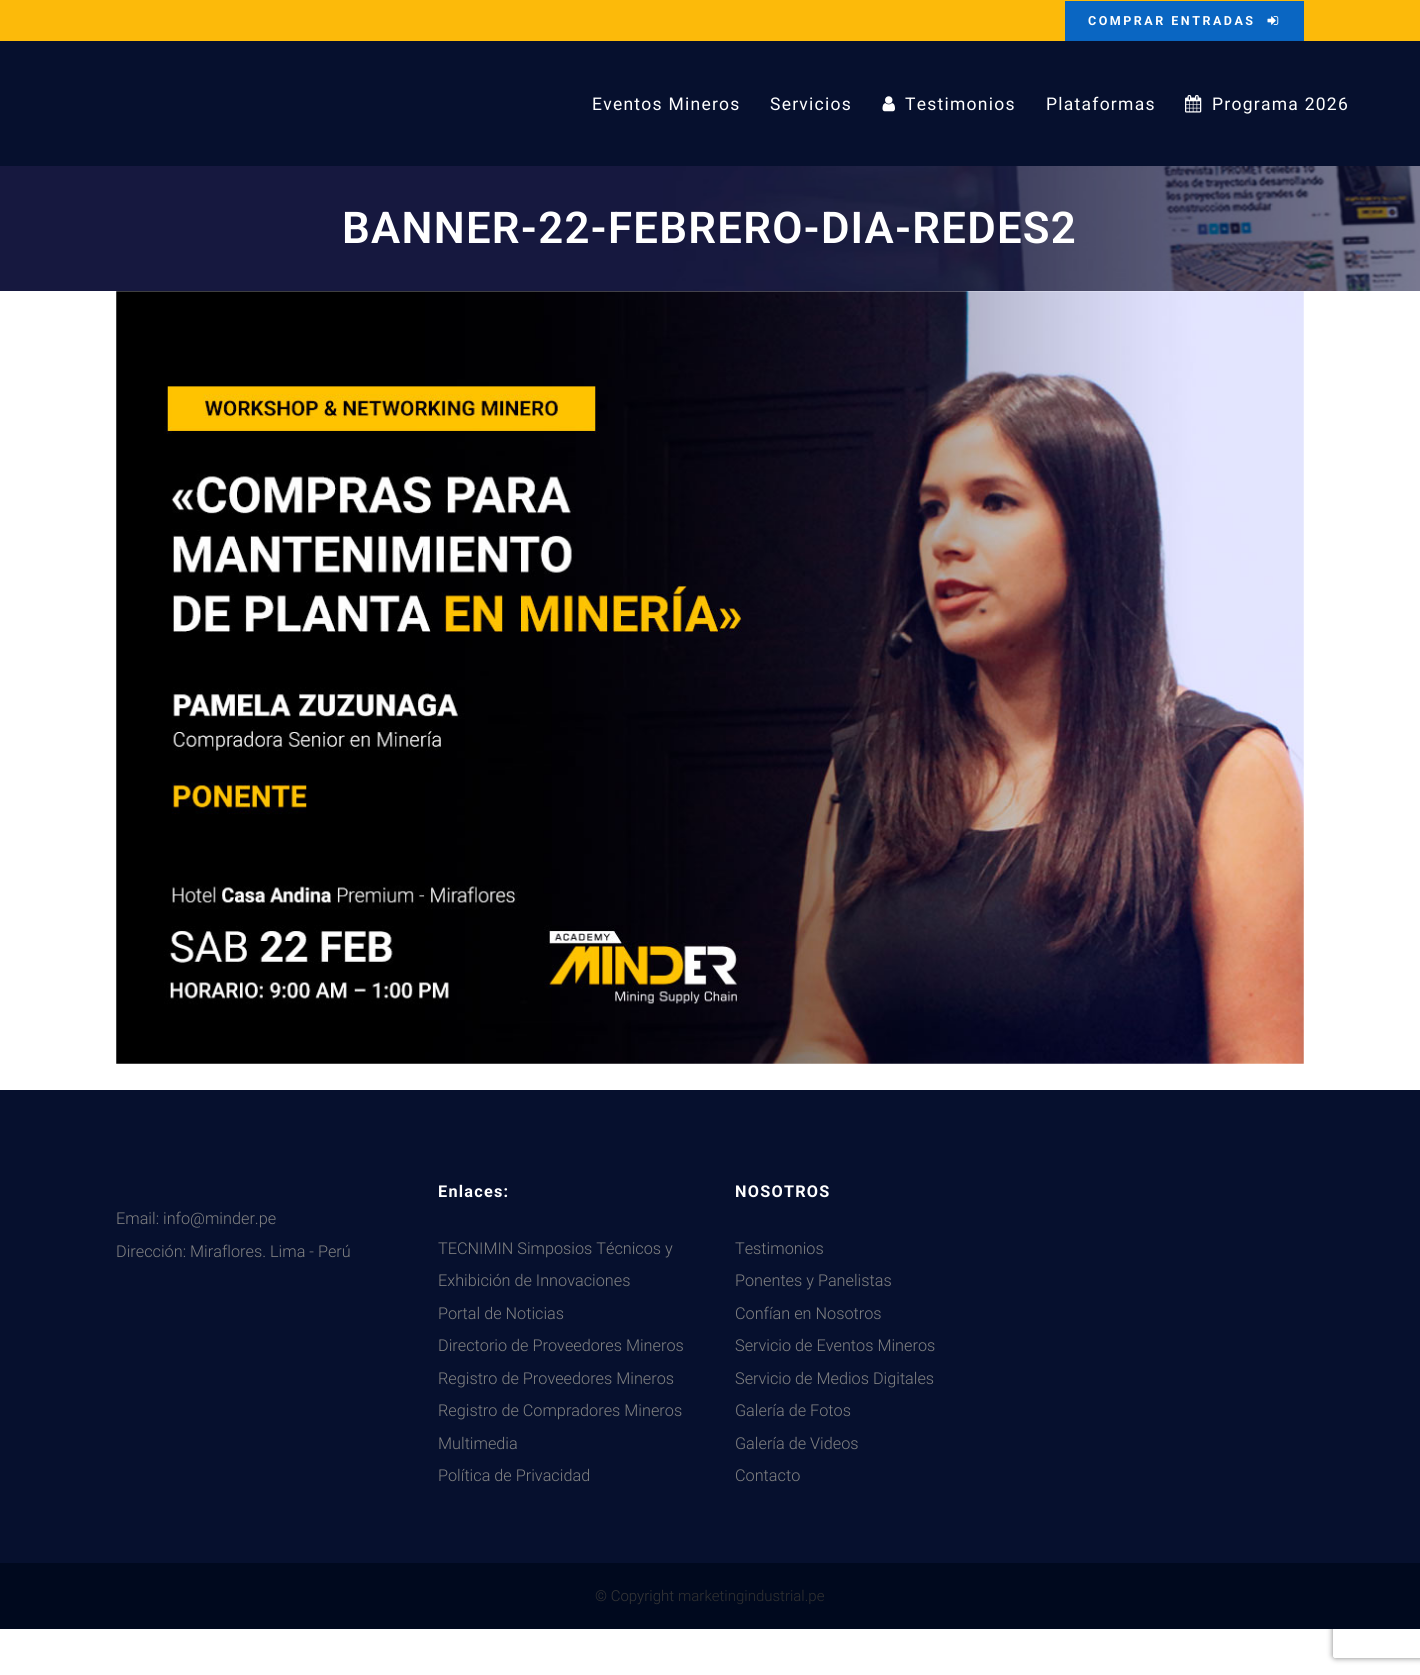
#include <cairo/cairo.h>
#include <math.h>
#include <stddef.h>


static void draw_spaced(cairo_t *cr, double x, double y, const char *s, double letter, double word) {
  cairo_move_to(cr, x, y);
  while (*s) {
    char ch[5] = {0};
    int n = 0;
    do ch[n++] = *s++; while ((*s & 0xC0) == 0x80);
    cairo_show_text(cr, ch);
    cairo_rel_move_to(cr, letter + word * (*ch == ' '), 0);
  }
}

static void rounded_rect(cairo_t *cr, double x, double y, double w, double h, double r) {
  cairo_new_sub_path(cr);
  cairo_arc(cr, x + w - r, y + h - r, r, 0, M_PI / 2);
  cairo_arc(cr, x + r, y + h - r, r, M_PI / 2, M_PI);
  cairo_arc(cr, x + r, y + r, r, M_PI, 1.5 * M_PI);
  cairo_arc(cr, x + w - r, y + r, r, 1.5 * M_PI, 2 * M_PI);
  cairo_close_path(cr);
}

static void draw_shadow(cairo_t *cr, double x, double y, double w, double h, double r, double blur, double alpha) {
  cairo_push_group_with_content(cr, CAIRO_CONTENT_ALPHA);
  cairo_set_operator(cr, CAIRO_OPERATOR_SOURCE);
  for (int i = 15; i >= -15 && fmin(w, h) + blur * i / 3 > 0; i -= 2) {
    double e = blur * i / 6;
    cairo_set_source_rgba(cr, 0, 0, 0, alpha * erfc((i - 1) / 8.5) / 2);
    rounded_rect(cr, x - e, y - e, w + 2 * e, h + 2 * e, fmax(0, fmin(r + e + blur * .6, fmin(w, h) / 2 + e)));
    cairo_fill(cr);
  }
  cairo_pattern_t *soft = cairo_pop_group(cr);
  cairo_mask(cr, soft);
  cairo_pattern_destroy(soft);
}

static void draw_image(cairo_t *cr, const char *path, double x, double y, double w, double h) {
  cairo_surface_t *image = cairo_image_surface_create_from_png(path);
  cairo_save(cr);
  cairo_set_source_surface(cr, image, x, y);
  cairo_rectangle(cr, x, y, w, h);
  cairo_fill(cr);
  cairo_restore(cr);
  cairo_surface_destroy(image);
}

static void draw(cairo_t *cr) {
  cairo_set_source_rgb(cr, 1, 1, 1);
  cairo_paint(cr);
  cairo_set_source_rgb(cr, 252 / 255.0, 186 / 255.0, 10 / 255.0);
  cairo_rectangle(cr, 0, 0, 1420, 41);
  cairo_fill(cr);
  cairo_set_source_rgb(cr, 10 / 255.0, 102 / 255.0, 194 / 255.0);
  cairo_rectangle(cr, 1065.5, 1.5, 238, 39);
  cairo_fill_preserve(cr);
  cairo_set_source_rgb(cr, 10 / 255.0, 101 / 255.0, 192 / 255.0);
  cairo_set_line_width(cr, 1);
  cairo_stroke(cr);
  draw_image(cr, "images/1.png", 1267, 16, 12, 9);
  cairo_set_source_rgb(cr, 6 / 255.0, 16 / 255.0, 46 / 255.0);
  cairo_rectangle(cr, 0, 41, 1420, 125);
  cairo_fill(cr);
  draw_image(cr, "images/2.png", 882, 96, 13, 16);
  draw_image(cr, "images/3.png", 1185, 95, 17, 18);
  draw_image(cr, "images/4.png", 0, 166, 1420, 125);
  draw_image(cr, "images/5.png", 116, 291, 1188, 773);
  cairo_rectangle(cr, 0, 1090, 1420, 473);
  cairo_fill(cr);
  cairo_save(cr);
  cairo_set_fill_rule(cr, CAIRO_FILL_RULE_EVEN_ODD);
  cairo_new_path(cr);
  cairo_move_to(cr, 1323, 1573);
  cairo_line_to(cr, 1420, 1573);
  cairo_line_to(cr, 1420, 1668);
  cairo_line_to(cr, 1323, 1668);
  cairo_close_path(cr);
  cairo_move_to(cr, 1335.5, 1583);
  cairo_line_to(cr, 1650.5, 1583);
  cairo_curve_to(cr, 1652, 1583, 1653, 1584, 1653, 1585.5);
  cairo_line_to(cr, 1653, 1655.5);
  cairo_curve_to(cr, 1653, 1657, 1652, 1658, 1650.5, 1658);
  cairo_line_to(cr, 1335.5, 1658);
  cairo_curve_to(cr, 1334, 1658, 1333, 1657, 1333, 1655.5);
  cairo_line_to(cr, 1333, 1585.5);
  cairo_curve_to(cr, 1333, 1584, 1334, 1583, 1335.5, 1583);
  cairo_close_path(cr);
  cairo_clip(cr);
  cairo_set_source_rgb(cr, 128 / 255.0, 128 / 255.0, 128 / 255.0);
  draw_shadow(cr, 1333, 1583, 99, 75, 2.5, 3, 1);
  cairo_restore(cr);
  cairo_set_source_rgb(cr, 0, 9 / 255.0, 30 / 255.0);
  cairo_rectangle(cr, 0, 1563, 1420, 66);
  cairo_fill(cr);
  cairo_select_font_face(cr, "Roboto", CAIRO_FONT_SLANT_NORMAL, CAIRO_FONT_WEIGHT_BOLD);
  cairo_set_font_size(cr, 12.5);
  cairo_set_source_rgb(cr, 1, 1, 1);
  draw_spaced(cr, 1088, 25, "COMPRAR ENTRADAS", 2.5, 0);
  cairo_select_font_face(cr, "Roboto", CAIRO_FONT_SLANT_NORMAL, CAIRO_FONT_WEIGHT_NORMAL);
  cairo_set_font_size(cr, 17.5);
  draw_spaced(cr, 592, 110, "Eventos Mineros", 1.25, 0);
  draw_spaced(cr, 770, 110, "Servicios", 1.25, 0);
  draw_spaced(cr, 905, 110, "Testimonios", 1.25, 0);
  draw_spaced(cr, 1046, 110, "Plataformas", 1.25, 0);
  draw_spaced(cr, 1212, 110, "Programa 2026", 1.25, 0);
  cairo_select_font_face(cr, "Roboto SemiBold", CAIRO_FONT_SLANT_NORMAL, CAIRO_FONT_WEIGHT_NORMAL);
  cairo_set_font_size(cr, 43.75);
  draw_spaced(cr, 342, 243, "BANNER-22-FEBRERO-DIA-REDES2", 1.25, 0);
  cairo_select_font_face(cr, "Roboto Light", CAIRO_FONT_SLANT_NORMAL, CAIRO_FONT_WEIGHT_NORMAL);
  cairo_set_font_size(cr, 16.25);
  cairo_set_source_rgb(cr, 129 / 255.0, 129 / 255.0, 129 / 255.0);
  cairo_move_to(cr, 116, 1224);
  cairo_show_text(cr, "Email: info@minder.pe");
  cairo_move_to(cr, 116, 1257);
  cairo_show_text(cr, "Dirección: Miraflores. Lima - Perú");
  cairo_select_font_face(cr, "Roboto", CAIRO_FONT_SLANT_NORMAL, CAIRO_FONT_WEIGHT_BOLD);
  cairo_set_source_rgb(cr, 1, 1, 1);
  draw_spaced(cr, 438, 1197, "Enlaces:", 1.25, 0);
  cairo_select_font_face(cr, "Roboto Light", CAIRO_FONT_SLANT_NORMAL, CAIRO_FONT_WEIGHT_NORMAL);
  cairo_set_source_rgb(cr, 129 / 255.0, 129 / 255.0, 129 / 255.0);
  cairo_move_to(cr, 438, 1254);
  cairo_show_text(cr, "TECNIMIN Simposios Técnicos y");
  cairo_move_to(cr, 438, 1286);
  cairo_show_text(cr, "Exhibición de Innovaciones");
  cairo_move_to(cr, 438, 1319);
  cairo_show_text(cr, "Portal de Noticias");
  cairo_move_to(cr, 438, 1351);
  cairo_show_text(cr, "Directorio de Proveedores Mineros");
  cairo_move_to(cr, 438, 1384);
  cairo_show_text(cr, "Registro de Proveedores Mineros");
  cairo_move_to(cr, 438, 1416);
  cairo_show_text(cr, "Registro de Compradores Mineros");
  cairo_move_to(cr, 438, 1449);
  cairo_show_text(cr, "Multimedia");
  cairo_move_to(cr, 438, 1481);
  cairo_show_text(cr, "Política de Privacidad");
  cairo_select_font_face(cr, "Roboto", CAIRO_FONT_SLANT_NORMAL, CAIRO_FONT_WEIGHT_BOLD);
  cairo_set_source_rgb(cr, 1, 1, 1);
  draw_spaced(cr, 735, 1197, "NOSOTROS", 1.25, 0);
  cairo_select_font_face(cr, "Roboto Light", CAIRO_FONT_SLANT_NORMAL, CAIRO_FONT_WEIGHT_NORMAL);
  cairo_set_source_rgb(cr, 129 / 255.0, 129 / 255.0, 129 / 255.0);
  cairo_move_to(cr, 735, 1254);
  cairo_show_text(cr, "Testimonios");
  cairo_move_to(cr, 735, 1286);
  cairo_show_text(cr, "Ponentes y Panelistas");
  cairo_move_to(cr, 735, 1319);
  cairo_show_text(cr, "Confían en Nosotros");
  cairo_move_to(cr, 735, 1351);
  cairo_show_text(cr, "Servicio de Eventos Mineros");
  cairo_move_to(cr, 735, 1384);
  cairo_show_text(cr, "Servicio de Medios Digitales");
  cairo_move_to(cr, 735, 1416);
  cairo_show_text(cr, "Galería de Fotos");
  cairo_move_to(cr, 735, 1449);
  cairo_show_text(cr, "Galería de Videos");
  cairo_move_to(cr, 735, 1481);
  cairo_show_text(cr, "Contacto");
  cairo_set_font_size(cr, 15);
  cairo_set_source_rgb(cr, 54 / 255.0, 54 / 255.0, 54 / 255.0);
  cairo_move_to(cr, 595, 1601);
  cairo_show_text(cr, "© Copyright");
  cairo_set_source_rgb(cr, 48 / 255.0, 48 / 255.0, 48 / 255.0);
  cairo_move_to(cr, 678, 1601);
  cairo_show_text(cr, "marketingindustrial.pe");
}

int main(void) {
  cairo_surface_t *surface = cairo_image_surface_create(CAIRO_FORMAT_RGB24, 1420, 1675);
  cairo_t *cr = cairo_create(surface);
  cairo_font_options_t *options = cairo_font_options_create();
  cairo_font_options_set_hint_metrics(options, CAIRO_HINT_METRICS_OFF);
  cairo_font_options_set_hint_style(options, CAIRO_HINT_STYLE_NONE);
  cairo_set_font_options(cr, options);
  cairo_set_miter_limit(cr, 4);
  draw(cr);
  cairo_surface_write_to_png(surface, "out.png");
  cairo_font_options_destroy(options);
  cairo_destroy(cr);
  cairo_surface_destroy(surface);
  return 0;
}
